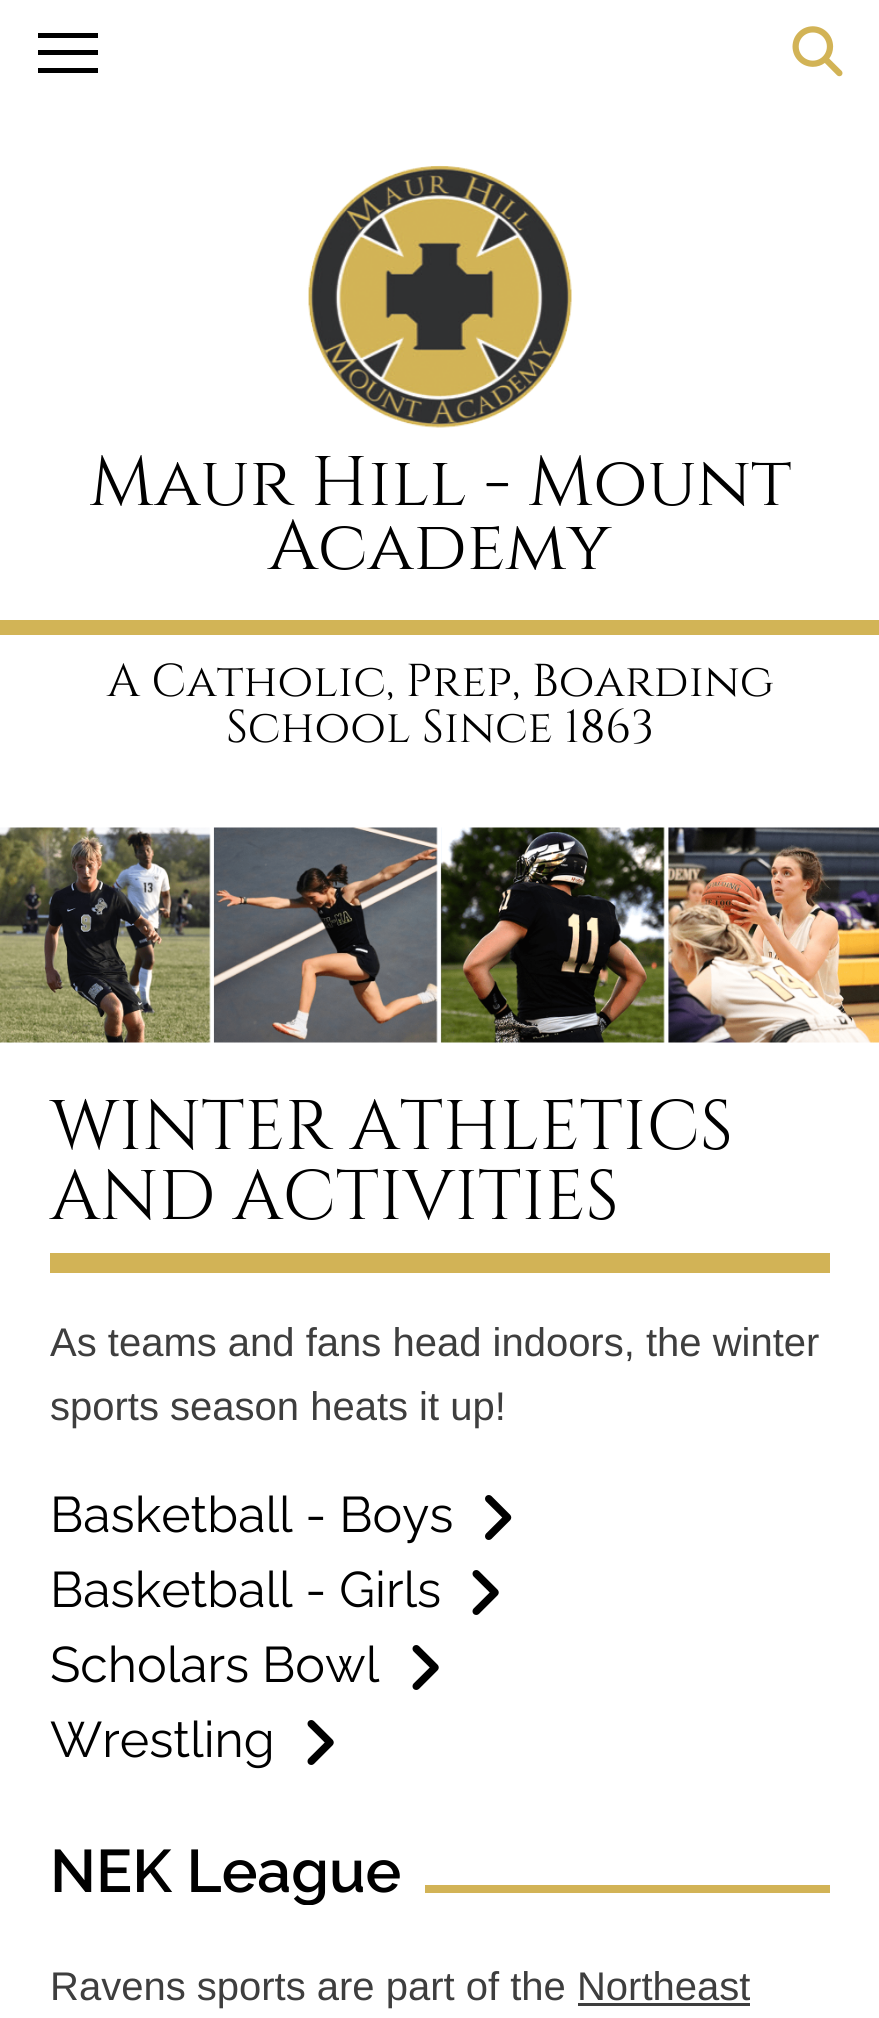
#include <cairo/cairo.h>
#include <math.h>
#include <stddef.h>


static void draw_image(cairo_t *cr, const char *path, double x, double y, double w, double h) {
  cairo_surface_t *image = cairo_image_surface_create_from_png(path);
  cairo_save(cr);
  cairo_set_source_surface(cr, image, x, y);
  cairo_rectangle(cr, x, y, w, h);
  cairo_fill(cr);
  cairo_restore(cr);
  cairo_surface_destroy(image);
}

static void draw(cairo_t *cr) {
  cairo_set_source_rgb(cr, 1, 1, 1);
  cairo_paint(cr);
  cairo_set_source_rgb(cr, 0, 0, 0);
  cairo_rectangle(cr, 38, 50, 60, 5);
  cairo_fill(cr);
  cairo_rectangle(cr, 38, 33, 60, 5);
  cairo_fill(cr);
  cairo_rectangle(cr, 38, 68, 60, 5);
  cairo_fill(cr);
  draw_image(cr, "images/1.png", 792, 26, 51, 51);
  draw_image(cr, "images/2.png", 308, 165, 264, 263);
  cairo_set_source_rgb(cr, 210 / 255.0, 180 / 255.0, 86 / 255.0);
  cairo_rectangle(cr, 0, 620, 879, 15);
  cairo_fill(cr);
  draw_image(cr, "images/3.png", 0, 827, 879, 216);
  cairo_set_source_rgb(cr, 210 / 255.0, 179 / 255.0, 86 / 255.0);
  cairo_rectangle(cr, 50, 1253, 780, 20);
  cairo_fill(cr);
  draw_image(cr, "images/4.png", 485, 1495, 27, 45);
  draw_image(cr, "images/5.png", 472, 1570, 27, 45);
  draw_image(cr, "images/5.png", 412, 1645, 27, 45);
  draw_image(cr, "images/5.png", 307, 1720, 27, 45);
  cairo_rectangle(cr, 425, 1885, 405, 8);
  cairo_fill(cr);
  cairo_set_source_rgb(cr, 62 / 255.0, 62 / 255.0, 62 / 255.0);
  cairo_rectangle(cr, 578, 2003, 172, 3);
  cairo_fill(cr);
  cairo_select_font_face(cr, "Cinzel", CAIRO_FONT_SLANT_NORMAL, CAIRO_FONT_WEIGHT_NORMAL);
  cairo_set_font_size(cr, 70);
  cairo_set_source_rgb(cr, 0, 0, 0);
  cairo_move_to(cr, 89, 505);
  cairo_show_text(cr, "Maur Hill - Mount");
  cairo_move_to(cr, 268, 569);
  cairo_show_text(cr, "Academy");
  cairo_set_font_size(cr, 46);
  cairo_move_to(cr, 107, 696);
  cairo_show_text(cr, "A Catholic, Prep, Boarding");
  cairo_move_to(cr, 226, 742);
  cairo_show_text(cr, "School Since 1863");
  cairo_set_font_size(cr, 70);
  cairo_move_to(cr, 50, 1149);
  cairo_show_text(cr, "WINTER ATHLETICS");
  cairo_move_to(cr, 50, 1219);
  cairo_show_text(cr, "AND ACTIVITIES");
  cairo_select_font_face(cr, "Liberation Sans", CAIRO_FONT_SLANT_NORMAL, CAIRO_FONT_WEIGHT_NORMAL);
  cairo_set_font_size(cr, 40);
  cairo_set_source_rgb(cr, 62 / 255.0, 62 / 255.0, 62 / 255.0);
  cairo_move_to(cr, 50, 1356);
  cairo_show_text(cr, "As teams and fans head indoors, the winter");
  cairo_move_to(cr, 50, 1420);
  cairo_show_text(cr, "sports season heats it up!");
  cairo_select_font_face(cr, "Raleway", CAIRO_FONT_SLANT_NORMAL, CAIRO_FONT_WEIGHT_NORMAL);
  cairo_set_font_size(cr, 50);
  cairo_set_source_rgb(cr, 0, 0, 0);
  cairo_move_to(cr, 50, 1532);
  cairo_show_text(cr, "Basketball - Boys");
  cairo_move_to(cr, 50, 1607);
  cairo_show_text(cr, "Basketball - Girls");
  cairo_move_to(cr, 50, 1682);
  cairo_show_text(cr, "Scholars Bowl");
  cairo_move_to(cr, 50, 1757);
  cairo_show_text(cr, "Wrestling");
  cairo_save(cr);
  cairo_rectangle(cr, 50, 1840, 780, 65);
  cairo_clip(cr);
  cairo_select_font_face(cr, "Raleway SemiBold", CAIRO_FONT_SLANT_NORMAL, CAIRO_FONT_WEIGHT_NORMAL);
  cairo_set_font_size(cr, 60);
  cairo_move_to(cr, 50, 1892);
  cairo_show_text(cr, "NEK League");
  cairo_restore(cr);
  cairo_select_font_face(cr, "Liberation Sans", CAIRO_FONT_SLANT_NORMAL, CAIRO_FONT_WEIGHT_NORMAL);
  cairo_set_font_size(cr, 40);
  cairo_set_source_rgb(cr, 62 / 255.0, 62 / 255.0, 62 / 255.0);
  cairo_move_to(cr, 50, 2000);
  cairo_show_text(cr, "Ravens sports are part of the Northeast");
}

int main(void) {
  cairo_surface_t *surface = cairo_image_surface_create(CAIRO_FORMAT_RGB24, 879, 2018);
  cairo_t *cr = cairo_create(surface);
  cairo_font_options_t *options = cairo_font_options_create();
  cairo_font_options_set_hint_metrics(options, CAIRO_HINT_METRICS_OFF);
  cairo_font_options_set_hint_style(options, CAIRO_HINT_STYLE_NONE);
  cairo_set_font_options(cr, options);
  cairo_set_miter_limit(cr, 4);
  draw(cr);
  cairo_surface_write_to_png(surface, "out.png");
  cairo_font_options_destroy(options);
  cairo_destroy(cr);
  cairo_surface_destroy(surface);
  return 0;
}
